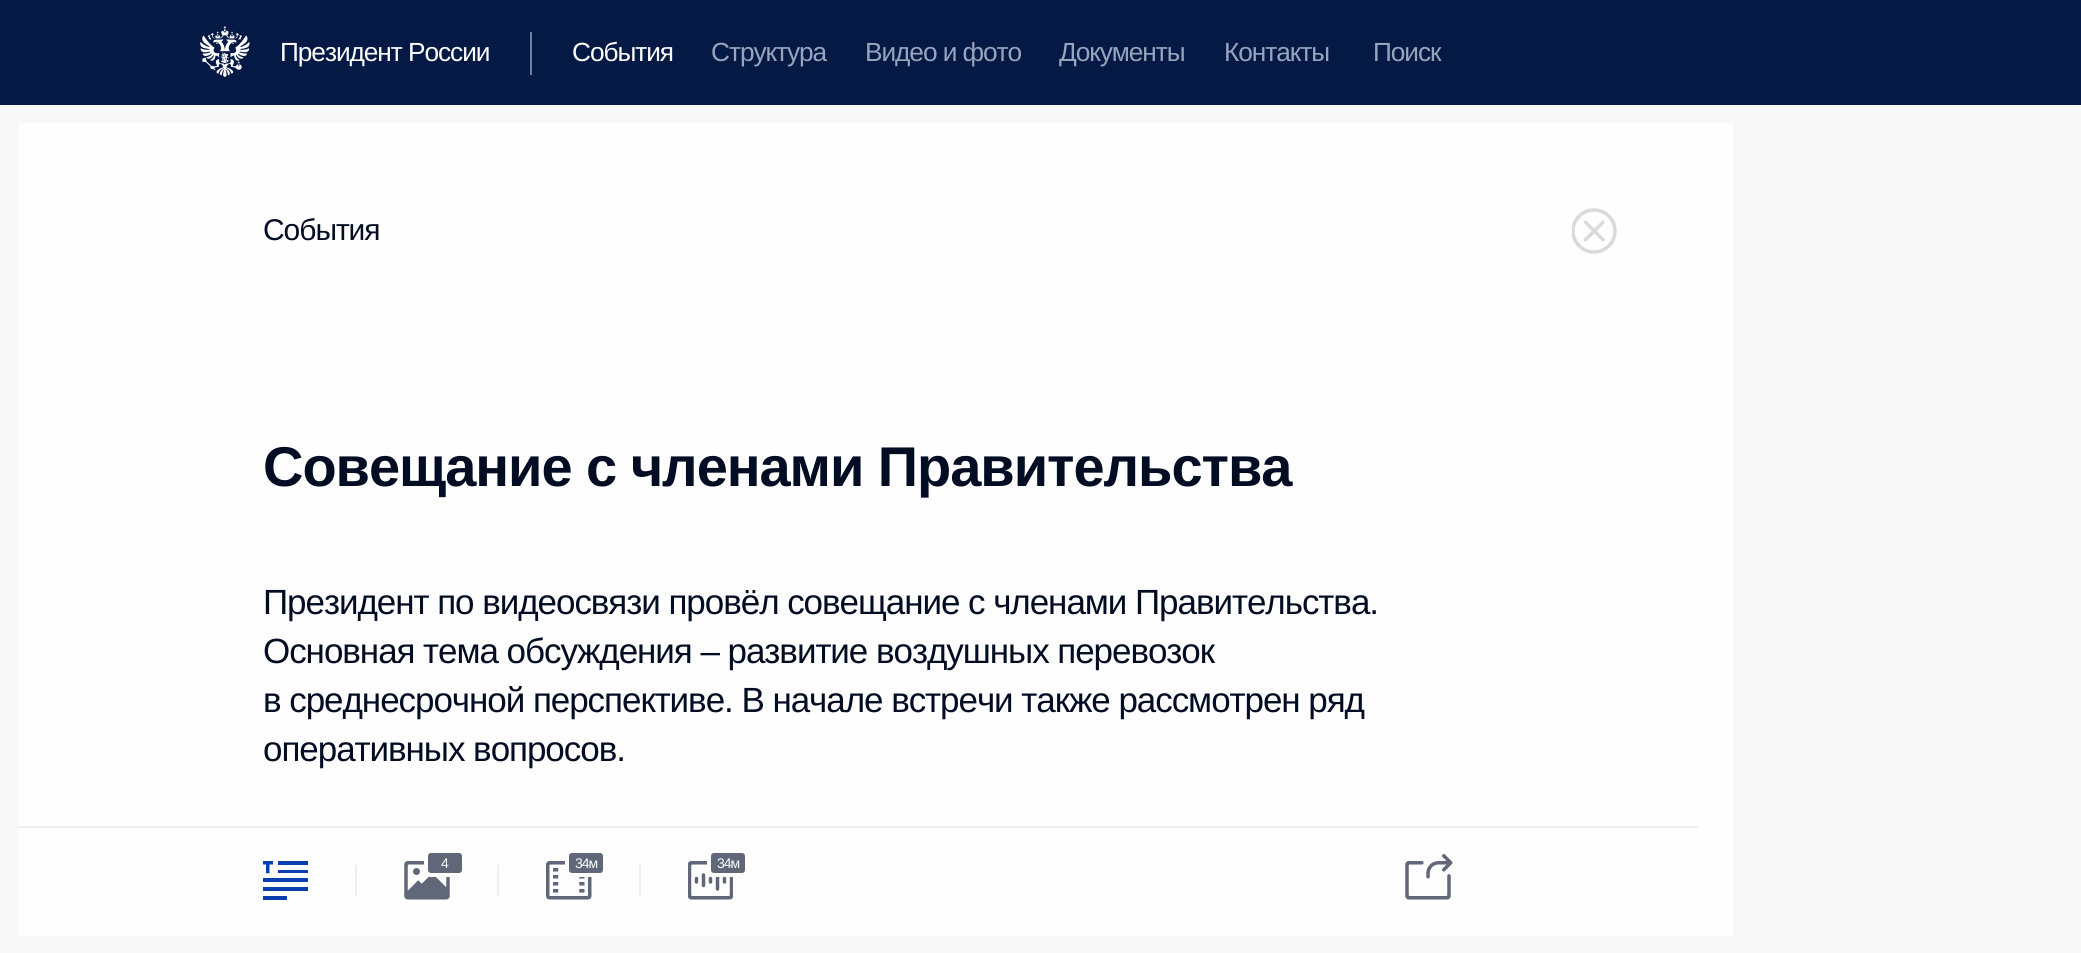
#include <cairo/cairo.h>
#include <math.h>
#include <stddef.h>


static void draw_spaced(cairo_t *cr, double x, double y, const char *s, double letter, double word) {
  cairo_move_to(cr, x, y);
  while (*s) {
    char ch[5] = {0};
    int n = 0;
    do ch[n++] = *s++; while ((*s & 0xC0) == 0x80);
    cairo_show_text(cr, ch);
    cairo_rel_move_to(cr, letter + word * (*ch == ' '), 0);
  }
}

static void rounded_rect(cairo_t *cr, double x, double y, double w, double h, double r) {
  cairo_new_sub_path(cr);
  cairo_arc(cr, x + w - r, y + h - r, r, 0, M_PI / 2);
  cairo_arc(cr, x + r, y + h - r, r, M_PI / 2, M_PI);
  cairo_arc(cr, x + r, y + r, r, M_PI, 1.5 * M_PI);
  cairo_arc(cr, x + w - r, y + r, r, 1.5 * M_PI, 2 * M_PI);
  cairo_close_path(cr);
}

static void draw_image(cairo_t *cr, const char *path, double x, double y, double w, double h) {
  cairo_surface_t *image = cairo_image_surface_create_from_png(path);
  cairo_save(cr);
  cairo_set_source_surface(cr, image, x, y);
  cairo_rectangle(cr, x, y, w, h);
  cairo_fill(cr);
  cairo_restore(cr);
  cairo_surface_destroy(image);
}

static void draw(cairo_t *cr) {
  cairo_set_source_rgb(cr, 248 / 255.0, 248 / 255.0, 248 / 255.0);
  cairo_paint(cr);
  cairo_set_source_rgb(cr, 5 / 255.0, 25 / 255.0, 69 / 255.0);
  cairo_rectangle(cr, 0, 0, 2081, 105);
  cairo_fill(cr);
  draw_image(cr, "images/1.png", 200, 26, 50, 51);
  cairo_set_source_rgb(cr, 112 / 255.0, 126 / 255.0, 156 / 255.0);
  cairo_rectangle(cr, 530, 32, 2, 43);
  cairo_fill(cr);
  cairo_set_source_rgb(cr, 254 / 255.0, 254 / 255.0, 254 / 255.0);
  cairo_rectangle(cr, 18, 123, 1715, 813);
  cairo_fill(cr);
  draw_image(cr, "images/2.png", 1572, 208, 45, 46);
  cairo_set_source_rgb(cr, 238 / 255.0, 238 / 255.0, 238 / 255.0);
  cairo_rectangle(cr, 18, 826, 1680, 2);
  cairo_fill(cr);
  draw_image(cr, "images/3.png", 263, 861, 45, 39);
  cairo_rectangle(cr, 355, 865, 2, 31);
  cairo_fill(cr);
  draw_image(cr, "images/4.png", 404, 861, 46, 39);
  cairo_set_source_rgb(cr, 96 / 255.0, 103 / 255.0, 120 / 255.0);
  rounded_rect(cr, 426, 851, 38, 24, 5);
  cairo_fill_preserve(cr);
  cairo_set_source_rgb(cr, 254 / 255.0, 254 / 255.0, 254 / 255.0);
  cairo_set_line_width(cr, 4);
  cairo_stroke(cr);
  cairo_set_source_rgb(cr, 238 / 255.0, 238 / 255.0, 238 / 255.0);
  cairo_rectangle(cr, 497, 865, 2, 31);
  cairo_fill(cr);
  draw_image(cr, "images/5.png", 546, 861, 46, 39);
  cairo_set_source_rgb(cr, 96 / 255.0, 103 / 255.0, 120 / 255.0);
  rounded_rect(cr, 567, 851, 38, 24, 5);
  cairo_fill_preserve(cr);
  cairo_set_source_rgb(cr, 254 / 255.0, 254 / 255.0, 254 / 255.0);
  cairo_stroke(cr);
  cairo_set_source_rgb(cr, 238 / 255.0, 238 / 255.0, 238 / 255.0);
  cairo_rectangle(cr, 639, 865, 2, 31);
  cairo_fill(cr);
  draw_image(cr, "images/6.png", 688, 861, 45, 39);
  cairo_set_source_rgb(cr, 96 / 255.0, 103 / 255.0, 120 / 255.0);
  rounded_rect(cr, 709, 851, 38, 24, 5);
  cairo_fill_preserve(cr);
  cairo_set_source_rgb(cr, 254 / 255.0, 254 / 255.0, 254 / 255.0);
  cairo_stroke(cr);
  draw_image(cr, "images/7.png", 1405, 854, 48, 46);
  cairo_select_font_face(cr, "Liberation Sans", CAIRO_FONT_SLANT_NORMAL, CAIRO_FONT_WEIGHT_NORMAL);
  cairo_set_font_size(cr, 26.25);
  draw_spaced(cr, 280, 61, "Президент России", -1.05, 0);
  draw_spaced(cr, 572, 61, "События", -1.05, 0);
  cairo_set_source_rgb(cr, 152 / 255.0, 164 / 255.0, 190 / 255.0);
  draw_spaced(cr, 711, 61, "Структура", -1.05, 0);
  draw_spaced(cr, 865, 61, "Видео и фото", -1.05, 0);
  draw_spaced(cr, 1059, 61, "Документы", -1.05, 0);
  draw_spaced(cr, 1224, 61, "Контакты", -1.05, 0);
  draw_spaced(cr, 1373, 61, "Поиск", -1.05, 0);
  cairo_set_font_size(cr, 30);
  cairo_set_source_rgb(cr, 2 / 255.0, 12 / 255.0, 34 / 255.0);
  draw_spaced(cr, 263, 240, "События", -1.05, 0);
  cairo_select_font_face(cr, "Liberation Sans", CAIRO_FONT_SLANT_NORMAL, CAIRO_FONT_WEIGHT_BOLD);
  cairo_set_font_size(cr, 56);
  draw_spaced(cr, 263, 486, "Совещание с членами Правительства", -1.05, 0);
  cairo_select_font_face(cr, "Liberation Sans", CAIRO_FONT_SLANT_NORMAL, CAIRO_FONT_WEIGHT_NORMAL);
  cairo_set_font_size(cr, 35);
  draw_spaced(cr, 263, 614, "Президент по видеосвязи провёл совещание с членами Правительства.", -1.05, 0);
  draw_spaced(cr, 263, 663, "Основная тема обсуждения – развитие воздушных перевозок", -1.05, 0);
  draw_spaced(cr, 263, 712, "в среднесрочной перспективе. В начале встречи также рассмотрен ряд", -1.05, 0);
  draw_spaced(cr, 263, 761, "оперативных вопросов.", -1.05, 0);
  cairo_set_font_size(cr, 14);
  cairo_set_source_rgb(cr, 254 / 255.0, 254 / 255.0, 254 / 255.0);
  draw_spaced(cr, 441, 868, "4", -1.05, 0);
  draw_spaced(cr, 575, 868, "34м", -1.05, 0);
  draw_spaced(cr, 717, 868, "34м", -1.05, 0);
}

int main(void) {
  cairo_surface_t *surface = cairo_image_surface_create(CAIRO_FORMAT_RGB24, 2081, 953);
  cairo_t *cr = cairo_create(surface);
  cairo_font_options_t *options = cairo_font_options_create();
  cairo_font_options_set_hint_metrics(options, CAIRO_HINT_METRICS_OFF);
  cairo_font_options_set_hint_style(options, CAIRO_HINT_STYLE_NONE);
  cairo_set_font_options(cr, options);
  cairo_set_miter_limit(cr, 4);
  draw(cr);
  cairo_surface_write_to_png(surface, "out.png");
  cairo_font_options_destroy(options);
  cairo_destroy(cr);
  cairo_surface_destroy(surface);
  return 0;
}
